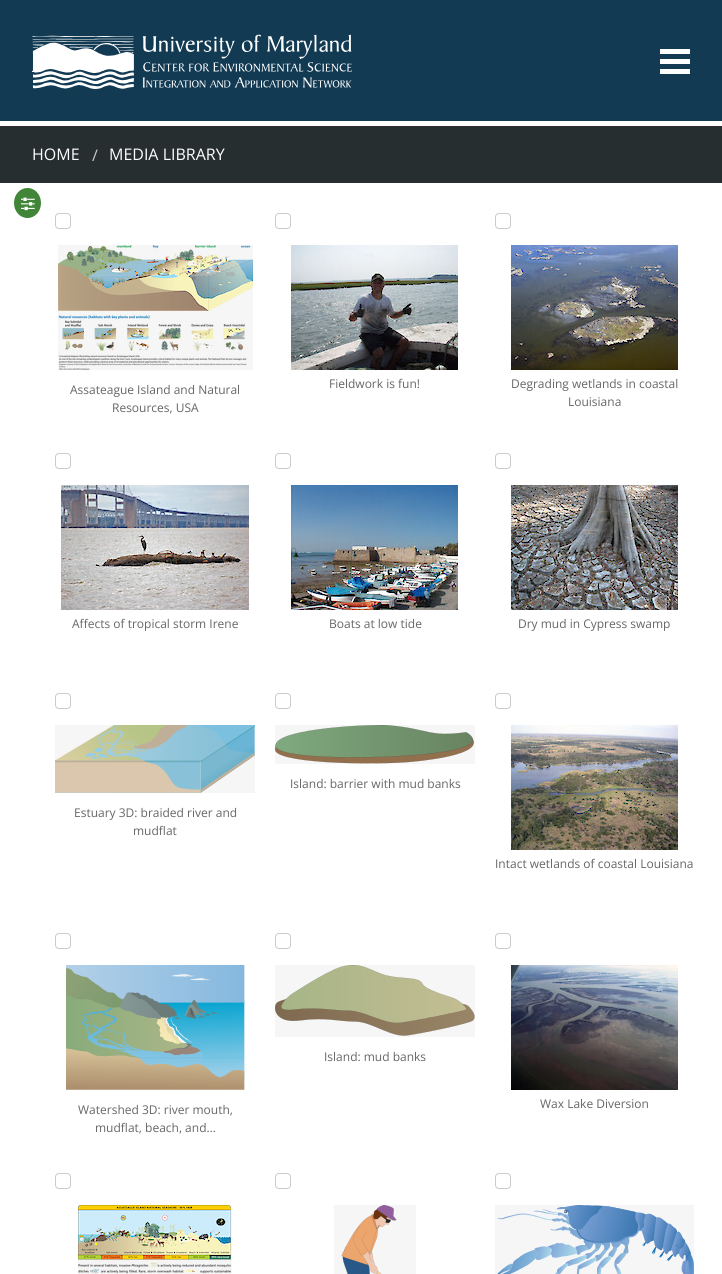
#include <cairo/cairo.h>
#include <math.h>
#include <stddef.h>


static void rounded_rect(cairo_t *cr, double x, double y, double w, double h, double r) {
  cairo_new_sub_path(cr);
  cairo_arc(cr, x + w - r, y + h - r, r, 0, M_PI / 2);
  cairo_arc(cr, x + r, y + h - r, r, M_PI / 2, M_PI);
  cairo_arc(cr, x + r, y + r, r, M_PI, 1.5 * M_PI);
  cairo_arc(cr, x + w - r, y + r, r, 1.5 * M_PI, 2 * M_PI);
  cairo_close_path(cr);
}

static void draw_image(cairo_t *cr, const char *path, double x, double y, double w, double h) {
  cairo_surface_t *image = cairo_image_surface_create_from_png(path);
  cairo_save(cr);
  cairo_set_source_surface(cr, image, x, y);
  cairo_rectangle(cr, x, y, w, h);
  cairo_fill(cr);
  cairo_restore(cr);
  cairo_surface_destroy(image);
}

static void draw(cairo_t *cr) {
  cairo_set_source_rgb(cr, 1, 1, 1);
  cairo_paint(cr);
  cairo_set_source_rgb(cr, 18 / 255.0, 58 / 255.0, 83 / 255.0);
  cairo_rectangle(cr, 0, 0, 722, 121);
  cairo_fill(cr);
  draw_image(cr, "images/1.png", 32, 34, 320, 55);
  cairo_set_source_rgb(cr, 254 / 255.0, 254 / 255.0, 254 / 255.0);
  cairo_rectangle(cr, 660, 69, 30, 5);
  cairo_fill(cr);
  cairo_rectangle(cr, 660, 59, 30, 5);
  cairo_fill(cr);
  cairo_rectangle(cr, 660, 49, 30, 5);
  cairo_fill(cr);
  cairo_set_source_rgb(cr, 38 / 255.0, 46 / 255.0, 47 / 255.0);
  cairo_rectangle(cr, 0, 126, 722, 57);
  cairo_fill(cr);
  cairo_set_source_rgb(cr, 65 / 255.0, 133 / 255.0, 56 / 255.0);
  cairo_new_path(cr);
  cairo_move_to(cr, 27.5, 188);
  cairo_curve_to(cr, 35, 188, 41, 194.5, 41, 203);
  cairo_curve_to(cr, 41, 211.5, 35, 218, 27.5, 218);
  cairo_curve_to(cr, 20, 218, 14, 211.5, 14, 203);
  cairo_curve_to(cr, 14, 194.5, 20, 188, 27.5, 188);
  cairo_close_path(cr);
  cairo_fill(cr);
  draw_image(cr, "images/2.png", 21, 197, 14, 14);
  rounded_rect(cr, 55.5, 213.5, 15, 15, 3.5);
  cairo_set_source_rgb(cr, 202 / 255.0, 202 / 255.0, 202 / 255.0);
  cairo_set_line_width(cr, 1);
  cairo_stroke(cr);
  cairo_set_source_rgb(cr, 246 / 255.0, 246 / 255.0, 246 / 255.0);
  cairo_rectangle(cr, 58, 245, 195, 125);
  cairo_fill(cr);
  draw_image(cr, "images/3.png", 58, 245, 195, 125);
  rounded_rect(cr, 275.5, 213.5, 15, 15, 3.5);
  cairo_set_source_rgb(cr, 202 / 255.0, 202 / 255.0, 202 / 255.0);
  cairo_stroke(cr);
  draw_image(cr, "images/4.png", 291, 245, 167, 125);
  rounded_rect(cr, 495.5, 213.5, 15, 15, 3.5);
  cairo_stroke(cr);
  draw_image(cr, "images/5.png", 511, 245, 167, 125);
  rounded_rect(cr, 55.5, 453.5, 15, 15, 3.5);
  cairo_stroke(cr);
  draw_image(cr, "images/6.png", 61, 485, 188, 125);
  rounded_rect(cr, 275.5, 453.5, 15, 15, 3.5);
  cairo_stroke(cr);
  draw_image(cr, "images/7.png", 291, 485, 167, 125);
  rounded_rect(cr, 495.5, 453.5, 15, 15, 3.5);
  cairo_stroke(cr);
  draw_image(cr, "images/8.png", 511, 485, 167, 125);
  rounded_rect(cr, 275.5, 693.5, 15, 15, 3.5);
  cairo_stroke(cr);
  cairo_set_source_rgb(cr, 246 / 255.0, 246 / 255.0, 246 / 255.0);
  cairo_rectangle(cr, 275, 725, 200, 39);
  cairo_fill(cr);
  draw_image(cr, "images/9.png", 275, 725, 199, 39);
  rounded_rect(cr, 55.5, 693.5, 15, 15, 3.5);
  cairo_set_source_rgb(cr, 202 / 255.0, 202 / 255.0, 202 / 255.0);
  cairo_stroke(cr);
  cairo_set_source_rgb(cr, 246 / 255.0, 246 / 255.0, 246 / 255.0);
  cairo_rectangle(cr, 55, 725, 200, 68);
  cairo_fill(cr);
  draw_image(cr, "images/10.png", 55, 725, 200, 68);
  rounded_rect(cr, 495.5, 693.5, 15, 15, 3.5);
  cairo_set_source_rgb(cr, 202 / 255.0, 202 / 255.0, 202 / 255.0);
  cairo_stroke(cr);
  draw_image(cr, "images/11.png", 511, 725, 167, 125);
  rounded_rect(cr, 275.5, 933.5, 15, 15, 3.5);
  cairo_stroke(cr);
  cairo_set_source_rgb(cr, 246 / 255.0, 246 / 255.0, 246 / 255.0);
  cairo_rectangle(cr, 275, 965, 200, 72);
  cairo_fill(cr);
  draw_image(cr, "images/12.png", 275, 965, 200, 71);
  rounded_rect(cr, 55.5, 933.5, 15, 15, 3.5);
  cairo_set_source_rgb(cr, 202 / 255.0, 202 / 255.0, 202 / 255.0);
  cairo_stroke(cr);
  cairo_set_source_rgb(cr, 246 / 255.0, 246 / 255.0, 246 / 255.0);
  cairo_rectangle(cr, 66, 965, 179, 125);
  cairo_fill(cr);
  draw_image(cr, "images/13.png", 66, 965, 179, 125);
  rounded_rect(cr, 495.5, 933.5, 15, 15, 3.5);
  cairo_set_source_rgb(cr, 202 / 255.0, 202 / 255.0, 202 / 255.0);
  cairo_stroke(cr);
  draw_image(cr, "images/14.png", 511, 965, 167, 125);
  rounded_rect(cr, 55.5, 1173.5, 15, 15, 3.5);
  cairo_stroke(cr);
  cairo_set_source_rgb(cr, 246 / 255.0, 246 / 255.0, 246 / 255.0);
  cairo_rectangle(cr, 78, 1205, 154, 69);
  cairo_fill(cr);
  draw_image(cr, "images/15.png", 78, 1205, 153, 69);
  rounded_rect(cr, 275.5, 1173.5, 15, 15, 3.5);
  cairo_set_source_rgb(cr, 202 / 255.0, 202 / 255.0, 202 / 255.0);
  cairo_stroke(cr);
  cairo_set_source_rgb(cr, 246 / 255.0, 246 / 255.0, 246 / 255.0);
  cairo_rectangle(cr, 334, 1205, 82, 69);
  cairo_fill(cr);
  draw_image(cr, "images/16.png", 341, 1205, 56, 69);
  rounded_rect(cr, 495.5, 1173.5, 15, 15, 3.5);
  cairo_set_source_rgb(cr, 202 / 255.0, 202 / 255.0, 202 / 255.0);
  cairo_stroke(cr);
  cairo_set_source_rgb(cr, 246 / 255.0, 246 / 255.0, 246 / 255.0);
  cairo_rectangle(cr, 495, 1205, 199, 69);
  cairo_fill(cr);
  draw_image(cr, "images/17.png", 497, 1205, 197, 69);
  cairo_select_font_face(cr, "Open Sans", CAIRO_FONT_SLANT_NORMAL, CAIRO_FONT_WEIGHT_NORMAL);
  cairo_set_font_size(cr, 16);
  cairo_set_source_rgb(cr, 254 / 255.0, 254 / 255.0, 254 / 255.0);
  cairo_move_to(cr, 32, 160);
  cairo_show_text(cr, "HOME");
  cairo_set_source_rgb(cr, 202 / 255.0, 202 / 255.0, 202 / 255.0);
  cairo_move_to(cr, 92, 161);
  cairo_show_text(cr, "/");
  cairo_set_source_rgb(cr, 254 / 255.0, 254 / 255.0, 254 / 255.0);
  cairo_move_to(cr, 109, 160);
  cairo_show_text(cr, "MEDIA LIBRARY");
  cairo_set_font_size(cr, 12);
  cairo_set_source_rgb(cr, 102 / 255.0, 102 / 255.0, 102 / 255.0);
  cairo_move_to(cr, 70, 394);
  cairo_show_text(cr, "Assateague Island and Natural");
  cairo_move_to(cr, 112, 412);
  cairo_show_text(cr, "Resources, USA");
  cairo_move_to(cr, 329, 388);
  cairo_show_text(cr, "Fieldwork is fun!");
  cairo_move_to(cr, 511, 388);
  cairo_show_text(cr, "Degrading wetlands in coastal");
  cairo_move_to(cr, 568, 406);
  cairo_show_text(cr, "Louisiana");
  cairo_move_to(cr, 72, 628);
  cairo_show_text(cr, "Affects of tropical storm Irene");
  cairo_move_to(cr, 329, 628);
  cairo_show_text(cr, "Boats at low tide");
  cairo_move_to(cr, 518, 628);
  cairo_show_text(cr, "Dry mud in Cypress swamp");
  cairo_move_to(cr, 290, 788);
  cairo_show_text(cr, "Island: barrier with mud banks");
  cairo_move_to(cr, 74, 817);
  cairo_show_text(cr, "Estuary 3D: braided river and");
  cairo_move_to(cr, 133, 835);
  cairo_show_text(cr, "mudflat");
  cairo_move_to(cr, 495, 868);
  cairo_show_text(cr, "Intact wetlands of coastal Louisiana");
  cairo_move_to(cr, 324, 1061);
  cairo_show_text(cr, "Island: mud banks");
  cairo_move_to(cr, 78, 1114);
  cairo_show_text(cr, "Watershed 3D: river mouth,");
  cairo_move_to(cr, 95, 1132);
  cairo_show_text(cr, "mudflat, beach, and…");
  cairo_move_to(cr, 540, 1108);
  cairo_show_text(cr, "Wax Lake Diversion");
}

int main(void) {
  cairo_surface_t *surface = cairo_image_surface_create(CAIRO_FORMAT_RGB24, 722, 1274);
  cairo_t *cr = cairo_create(surface);
  cairo_font_options_t *options = cairo_font_options_create();
  cairo_font_options_set_hint_metrics(options, CAIRO_HINT_METRICS_OFF);
  cairo_font_options_set_hint_style(options, CAIRO_HINT_STYLE_NONE);
  cairo_set_font_options(cr, options);
  cairo_set_miter_limit(cr, 4);
  draw(cr);
  cairo_surface_write_to_png(surface, "out.png");
  cairo_font_options_destroy(options);
  cairo_destroy(cr);
  cairo_surface_destroy(surface);
  return 0;
}
